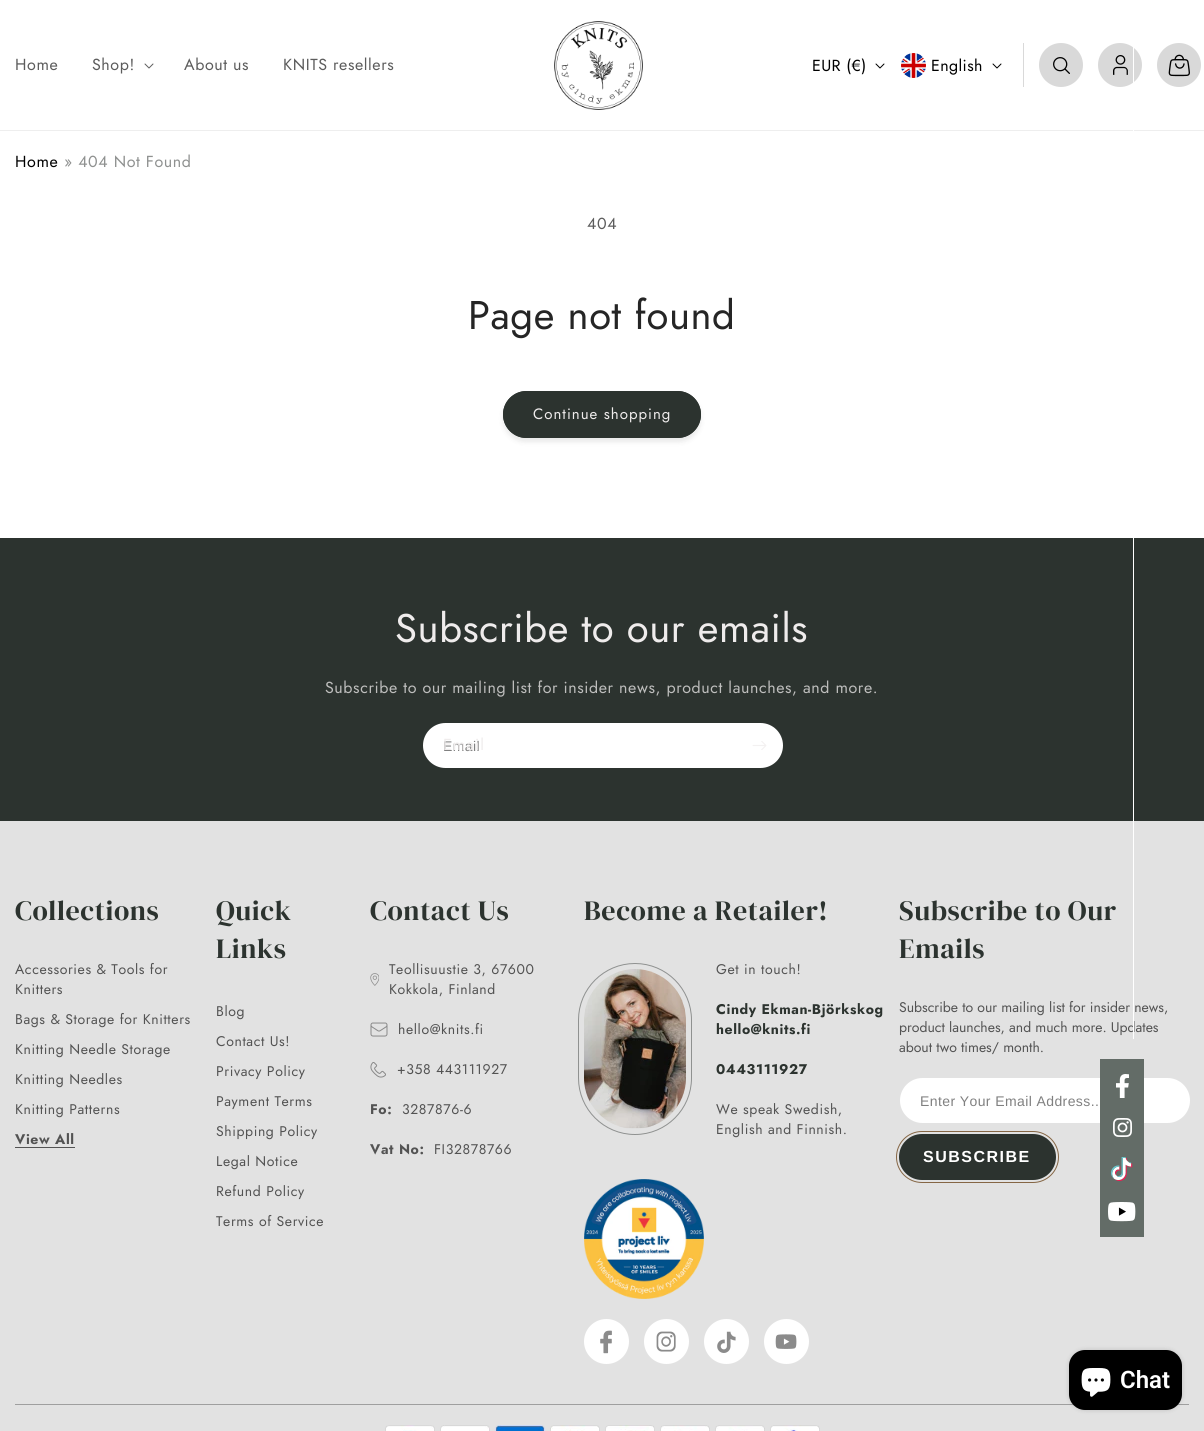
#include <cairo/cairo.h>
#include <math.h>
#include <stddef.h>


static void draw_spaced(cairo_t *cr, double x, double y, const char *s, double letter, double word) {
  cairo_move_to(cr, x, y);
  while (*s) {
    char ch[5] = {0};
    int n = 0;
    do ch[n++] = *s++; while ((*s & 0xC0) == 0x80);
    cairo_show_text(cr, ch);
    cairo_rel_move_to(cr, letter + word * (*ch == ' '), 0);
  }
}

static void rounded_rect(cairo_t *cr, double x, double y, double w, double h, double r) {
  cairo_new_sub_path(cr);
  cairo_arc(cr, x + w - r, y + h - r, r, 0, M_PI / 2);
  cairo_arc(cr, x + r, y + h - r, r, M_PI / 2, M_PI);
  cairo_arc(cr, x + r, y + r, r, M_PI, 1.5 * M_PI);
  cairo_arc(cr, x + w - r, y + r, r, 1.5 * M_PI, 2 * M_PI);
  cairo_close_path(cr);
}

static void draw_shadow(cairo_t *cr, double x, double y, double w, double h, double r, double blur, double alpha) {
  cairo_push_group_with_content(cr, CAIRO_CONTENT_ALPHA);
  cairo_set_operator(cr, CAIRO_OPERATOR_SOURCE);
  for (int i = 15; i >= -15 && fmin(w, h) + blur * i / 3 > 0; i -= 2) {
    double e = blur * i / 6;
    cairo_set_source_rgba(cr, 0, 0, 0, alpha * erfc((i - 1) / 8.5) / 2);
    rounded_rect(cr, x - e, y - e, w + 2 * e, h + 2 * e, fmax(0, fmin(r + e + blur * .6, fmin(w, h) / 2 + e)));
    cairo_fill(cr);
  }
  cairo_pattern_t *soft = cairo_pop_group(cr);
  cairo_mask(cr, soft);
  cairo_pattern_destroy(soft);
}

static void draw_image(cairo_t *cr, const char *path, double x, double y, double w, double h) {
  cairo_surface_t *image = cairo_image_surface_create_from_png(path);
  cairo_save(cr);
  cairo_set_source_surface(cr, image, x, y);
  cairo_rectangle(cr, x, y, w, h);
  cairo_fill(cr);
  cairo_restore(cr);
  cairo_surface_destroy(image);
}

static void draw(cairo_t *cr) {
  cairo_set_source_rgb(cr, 1, 1, 1);
  cairo_paint(cr);
  cairo_set_source_rgb(cr, 238 / 255.0, 238 / 255.0, 238 / 255.0);
  cairo_rectangle(cr, 0, 130, 1204, 1);
  cairo_fill(cr);
  draw_image(cr, "images/1.png", 144, 63, 10, 6);
  draw_image(cr, "images/2.png", 554, 21, 89, 89);
  cairo_set_source_rgb(cr, 217 / 255.0, 217 / 255.0, 217 / 255.0);
  cairo_rectangle(cr, 1023, 43, 1, 44);
  cairo_fill(cr);
  draw_image(cr, "images/3.png", 875, 63, 10, 6);
  draw_image(cr, "images/4.png", 901, 53, 25, 25);
  draw_image(cr, "images/3.png", 992, 63, 10, 6);
  cairo_arc(cr, 1061, 65, 22, 0, 2 * M_PI);
  cairo_fill(cr);
  draw_image(cr, "images/5.png", 1053, 57, 17, 17);
  cairo_arc(cr, 1120, 65, 22, 0, 2 * M_PI);
  cairo_fill(cr);
  draw_image(cr, "images/6.png", 1113, 55, 15, 20);
  cairo_arc(cr, 1179, 65, 22, 0, 2 * M_PI);
  cairo_fill(cr);
  draw_image(cr, "images/7.png", 1168, 54, 22, 23);
  cairo_set_source_rgb(cr, 226 / 255.0, 226 / 255.0, 226 / 255.0);
  cairo_rectangle(cr, 0, 821, 1204, 610);
  cairo_fill(cr);
  cairo_set_source_rgb(cr, 1, 1, 1);
  rounded_rect(cr, 900, 1078, 290, 45, 22.5);
  cairo_fill(cr);
  cairo_set_source_rgb(cr, 99 / 255.0, 108 / 255.0, 103 / 255.0);
  cairo_rectangle(cr, 1100, 1059, 44, 178);
  cairo_fill(cr);
  draw_image(cr, "images/8.png", 1116, 1074, 13, 24);
  draw_image(cr, "images/9.png", 1113, 1118, 19, 19);
  draw_image(cr, "images/10.png", 1111, 1157, 22, 24);
  draw_image(cr, "images/11.png", 1108, 1202, 28, 20);
  cairo_set_source_rgb(cr, 37 / 255.0, 37 / 255.0, 37 / 255.0);
  draw_shadow(cr, 503, 395, 198, 47, 23.5, 2.5, 0.1);
  cairo_set_source_rgb(cr, 44 / 255.0, 51 / 255.0, 47 / 255.0);
  rounded_rect(cr, 503, 391, 198, 47, 23.5);
  cairo_fill(cr);
  rounded_rect(cr, 503.5, 391.5, 197, 46, 23);
  cairo_set_line_width(cr, 1);
  cairo_stroke(cr);
  cairo_rectangle(cr, 0, 538, 1204, 283);
  cairo_fill(cr);
  cairo_set_source_rgb(cr, 1, 1, 1);
  rounded_rect(cr, 423, 723, 360, 45, 22.5);
  cairo_fill(cr);
  draw_image(cr, "images/12.png", 752, 741, 15, 9);
  cairo_set_source_rgb(cr, 83 / 255.0, 83 / 255.0, 83 / 255.0);
  cairo_rectangle(cr, 15, 1147, 60, 1);
  cairo_fill(cr);
  draw_image(cr, "images/13.png", 370, 973, 9, 13);
  draw_image(cr, "images/14.png", 370, 1022, 18, 15);
  draw_image(cr, "images/15.png", 370, 1062, 16, 16);
  draw_image(cr, "images/16.png", 584, 969, 102, 160);
  rounded_rect(cr, 578.5, 963.5, 113, 171, 56.5);
  cairo_set_source_rgb(cr, 143 / 255.0, 145 / 255.0, 144 / 255.0);
  cairo_stroke(cr);
  draw_image(cr, "images/17.png", 584, 1179, 120, 120);
  cairo_set_source_rgb(cr, 1, 1, 1);
  cairo_arc(cr, 606.5, 1341.5, 22.5, 0, 2 * M_PI);
  cairo_fill(cr);
  draw_image(cr, "images/18.png", 600, 1330, 12, 24);
  cairo_arc(cr, 666.5, 1341.5, 22.5, 0, 2 * M_PI);
  cairo_fill(cr);
  draw_image(cr, "images/19.png", 656, 1331, 20, 21);
  cairo_arc(cr, 726.5, 1341.5, 22.5, 0, 2 * M_PI);
  cairo_fill(cr);
  draw_image(cr, "images/20.png", 717, 1331, 19, 22);
  cairo_arc(cr, 786.5, 1341.5, 22.5, 0, 2 * M_PI);
  cairo_fill(cr);
  draw_image(cr, "images/21.png", 775, 1334, 22, 15);
  cairo_set_source_rgb(cr, 44 / 255.0, 51 / 255.0, 47 / 255.0);
  rounded_rect(cr, 899, 1134, 157, 46, 23);
  cairo_fill(cr);
  rounded_rect(cr, 896.5, 1131.5, 162, 51, 25.5);
  cairo_set_source_rgb(cr, 133 / 255.0, 102 / 255.0, 69 / 255.0);
  cairo_stroke(cr);
  cairo_set_source_rgb(cr, 159 / 255.0, 159 / 255.0, 159 / 255.0);
  cairo_rectangle(cr, 15, 1404, 1174, 1);
  cairo_fill(cr);
  draw_image(cr, "images/22.png", 385, 1425, 435, 6);
  cairo_set_source_rgb(cr, 0, 0, 0);
  draw_shadow(cr, 1069, 1350, 113, 60, 16, 2.5, 0.15);
  cairo_set_source_rgb(cr, 0, 0, 0);
  rounded_rect(cr, 1069, 1350, 113, 60, 16);
  cairo_fill(cr);
  draw_image(cr, "images/23.png", 1081, 1368, 30, 29);
  cairo_select_font_face(cr, "Jost", CAIRO_FONT_SLANT_NORMAL, CAIRO_FONT_WEIGHT_NORMAL);
  cairo_set_font_size(cr, 16);
  cairo_set_source_rgb(cr, 92 / 255.0, 92 / 255.0, 92 / 255.0);
  draw_spaced(cr, 15, 70, "Home", 0.6, 0);
  draw_spaced(cr, 92, 70, "Shop!", 0.6, 0);
  draw_spaced(cr, 184, 70, "About us", 0.6, 0);
  draw_spaced(cr, 283, 70, "KNITS resellers", 0.6, 0);
  cairo_set_source_rgb(cr, 0, 0, 0);
  draw_spaced(cr, 812, 71, "EUR (€)", 0.4, 0);
  draw_spaced(cr, 931, 71, "English", 0.4, 0);
  draw_spaced(cr, 15, 167, "Home", 0.6, 0);
  cairo_set_source_rgb(cr, 143 / 255.0, 145 / 255.0, 144 / 255.0);
  draw_spaced(cr, 64, 167, "» 404 Not Found", 0.6, 0);
  cairo_set_source_rgb(cr, 92 / 255.0, 92 / 255.0, 92 / 255.0);
  draw_spaced(cr, 587, 229, "404", 0.6, 0);
  cairo_set_font_size(cr, 40);
  cairo_set_source_rgb(cr, 37 / 255.0, 37 / 255.0, 37 / 255.0);
  draw_spaced(cr, 468, 329, "Page not found", 0.6, 0);
  cairo_set_font_size(cr, 15);
  cairo_set_source_rgb(cr, 239 / 255.0, 236 / 255.0, 236 / 255.0);
  draw_spaced(cr, 533, 419, "Continue shopping", 1, 0);
  cairo_set_font_size(cr, 40);
  draw_spaced(cr, 395, 642, "Subscribe to our emails", 0.6, 0);
  cairo_set_font_size(cr, 16);
  cairo_set_source_rgb(cr, 190 / 255.0, 190 / 255.0, 189 / 255.0);
  draw_spaced(cr, 325, 693, "Subscribe to our mailing list for insider news, product launches, and more.", 0.6, 0);
  cairo_select_font_face(cr, "Liberation Sans", CAIRO_FONT_SLANT_NORMAL, CAIRO_FONT_WEIGHT_NORMAL);
  cairo_set_font_size(cr, 14);
  cairo_set_source_rgb(cr, 128 / 255.0, 128 / 255.0, 128 / 255.0);
  draw_spaced(cr, 443, 751, "Email", 0.4, 0);
  cairo_select_font_face(cr, "Jost", CAIRO_FONT_SLANT_NORMAL, CAIRO_FONT_WEIGHT_NORMAL);
  cairo_set_font_size(cr, 16);
  cairo_set_source_rgb(cr, 239 / 255.0, 236 / 255.0, 236 / 255.0);
  draw_spaced(cr, 443, 750, "Email", 1, 0);
  cairo_select_font_face(cr, "DM Serif Display", CAIRO_FONT_SLANT_NORMAL, CAIRO_FONT_WEIGHT_NORMAL);
  cairo_set_font_size(cr, 28);
  cairo_set_source_rgb(cr, 44 / 255.0, 51 / 255.0, 47 / 255.0);
  draw_spaced(cr, 15, 920, "Collections", 0.6, 0);
  cairo_select_font_face(cr, "Jost", CAIRO_FONT_SLANT_NORMAL, CAIRO_FONT_WEIGHT_NORMAL);
  cairo_set_font_size(cr, 14);
  cairo_set_source_rgb(cr, 83 / 255.0, 83 / 255.0, 83 / 255.0);
  draw_spaced(cr, 15, 974, "Accessories & Tools for", 0.6, 0);
  draw_spaced(cr, 15, 994, "Knitters", 0.6, 0);
  draw_spaced(cr, 15, 1024, "Bags & Storage for Knitters", 0.6, 0);
  draw_spaced(cr, 15, 1054, "Knitting Needle Storage", 0.6, 0);
  draw_spaced(cr, 15, 1084, "Knitting Needles", 0.6, 0);
  draw_spaced(cr, 15, 1114, "Knitting Patterns", 0.6, 0);
  cairo_select_font_face(cr, "Jost", CAIRO_FONT_SLANT_NORMAL, CAIRO_FONT_WEIGHT_BOLD);
  draw_spaced(cr, 15, 1144, "View All", 0.6, 0);
  cairo_select_font_face(cr, "DM Serif Display", CAIRO_FONT_SLANT_NORMAL, CAIRO_FONT_WEIGHT_NORMAL);
  cairo_set_font_size(cr, 28);
  cairo_set_source_rgb(cr, 44 / 255.0, 51 / 255.0, 47 / 255.0);
  draw_spaced(cr, 216, 920, "Quick", 0.6, 0);
  draw_spaced(cr, 216, 958, "Links", 0.6, 0);
  cairo_select_font_face(cr, "Jost", CAIRO_FONT_SLANT_NORMAL, CAIRO_FONT_WEIGHT_NORMAL);
  cairo_set_font_size(cr, 14);
  cairo_set_source_rgb(cr, 83 / 255.0, 83 / 255.0, 83 / 255.0);
  draw_spaced(cr, 216, 1016, "Blog", 0.6, 0);
  draw_spaced(cr, 216, 1046, "Contact Us!", 0.6, 0);
  draw_spaced(cr, 216, 1076, "Privacy Policy", 0.6, 0);
  draw_spaced(cr, 216, 1106, "Payment Terms", 0.6, 0);
  draw_spaced(cr, 216, 1136, "Shipping Policy", 0.6, 0);
  draw_spaced(cr, 216, 1166, "Legal Notice", 0.6, 0);
  draw_spaced(cr, 216, 1196, "Refund Policy", 0.6, 0);
  draw_spaced(cr, 216, 1226, "Terms of Service", 0.6, 0);
  cairo_select_font_face(cr, "DM Serif Display", CAIRO_FONT_SLANT_NORMAL, CAIRO_FONT_WEIGHT_NORMAL);
  cairo_set_font_size(cr, 28);
  cairo_set_source_rgb(cr, 44 / 255.0, 51 / 255.0, 47 / 255.0);
  draw_spaced(cr, 370, 920, "Contact Us", 0.6, 0);
  cairo_select_font_face(cr, "Jost", CAIRO_FONT_SLANT_NORMAL, CAIRO_FONT_WEIGHT_NORMAL);
  cairo_set_font_size(cr, 14);
  cairo_set_source_rgb(cr, 83 / 255.0, 83 / 255.0, 83 / 255.0);
  draw_spaced(cr, 389, 974, "Teollisuustie 3, 67600", 0.6, 0);
  draw_spaced(cr, 389, 994, "Kokkola, Finland", 0.6, 0);
  draw_spaced(cr, 398, 1034, "hello@knits.fi", 0.6, 0);
  draw_spaced(cr, 397, 1074, "+358 443111927", 0.6, 0);
  cairo_select_font_face(cr, "Jost", CAIRO_FONT_SLANT_NORMAL, CAIRO_FONT_WEIGHT_BOLD);
  draw_spaced(cr, 370, 1114, "Fo:", 0.6, 0);
  cairo_select_font_face(cr, "Jost", CAIRO_FONT_SLANT_NORMAL, CAIRO_FONT_WEIGHT_NORMAL);
  draw_spaced(cr, 402, 1114, "3287876-6", 0.6, 0);
  cairo_select_font_face(cr, "Jost", CAIRO_FONT_SLANT_NORMAL, CAIRO_FONT_WEIGHT_BOLD);
  draw_spaced(cr, 370, 1154, "Vat No:", 0.6, 0);
  cairo_select_font_face(cr, "Jost", CAIRO_FONT_SLANT_NORMAL, CAIRO_FONT_WEIGHT_NORMAL);
  draw_spaced(cr, 434, 1154, "FI32878766", 0.6, 0);
  cairo_select_font_face(cr, "DM Serif Display", CAIRO_FONT_SLANT_NORMAL, CAIRO_FONT_WEIGHT_NORMAL);
  cairo_set_font_size(cr, 28);
  cairo_set_source_rgb(cr, 44 / 255.0, 51 / 255.0, 47 / 255.0);
  draw_spaced(cr, 584, 920, "Become a Retailer!", 0.6, 0);
  cairo_select_font_face(cr, "Jost", CAIRO_FONT_SLANT_NORMAL, CAIRO_FONT_WEIGHT_NORMAL);
  cairo_set_font_size(cr, 14);
  cairo_set_source_rgb(cr, 83 / 255.0, 83 / 255.0, 83 / 255.0);
  draw_spaced(cr, 716, 974, "Get in touch!", 0.6, 0);
  cairo_select_font_face(cr, "Jost", CAIRO_FONT_SLANT_NORMAL, CAIRO_FONT_WEIGHT_BOLD);
  cairo_set_source_rgb(cr, 44 / 255.0, 51 / 255.0, 47 / 255.0);
  draw_spaced(cr, 716, 1014, "Cindy Ekman-Björkskog", 0.6, 0);
  draw_spaced(cr, 716, 1034, "hello@knits.fi", 0.6, 0);
  draw_spaced(cr, 716, 1074, "0443111927", 0.6, 0);
  cairo_select_font_face(cr, "Jost", CAIRO_FONT_SLANT_NORMAL, CAIRO_FONT_WEIGHT_NORMAL);
  cairo_set_source_rgb(cr, 83 / 255.0, 83 / 255.0, 83 / 255.0);
  draw_spaced(cr, 716, 1114, "We speak Swedish,", 0.6, 0);
  draw_spaced(cr, 716, 1134, "English and Finnish.", 0.6, 0);
  cairo_select_font_face(cr, "DM Serif Display", CAIRO_FONT_SLANT_NORMAL, CAIRO_FONT_WEIGHT_NORMAL);
  cairo_set_font_size(cr, 28);
  cairo_set_source_rgb(cr, 44 / 255.0, 51 / 255.0, 47 / 255.0);
  draw_spaced(cr, 899, 920, "Subscribe to Our", 0.6, 0);
  draw_spaced(cr, 899, 958, "Emails", 0.6, 0);
  cairo_select_font_face(cr, "Jost", CAIRO_FONT_SLANT_NORMAL, CAIRO_FONT_WEIGHT_NORMAL);
  cairo_set_font_size(cr, 14);
  cairo_set_source_rgb(cr, 83 / 255.0, 83 / 255.0, 83 / 255.0);
  cairo_move_to(cr, 899, 1012);
  cairo_show_text(cr, "Subscribe to our mailing list for insider news,");
  cairo_move_to(cr, 899, 1032);
  cairo_show_text(cr, "product launches, and much more. Updates");
  cairo_set_source_rgb(cr, 1, 1, 1);
  cairo_rectangle(cr, 1133, 47, 1, 992);
  cairo_fill(cr);
  cairo_set_source_rgb(cr, 83 / 255.0, 83 / 255.0, 83 / 255.0);
  cairo_move_to(cr, 899, 1052);
  cairo_show_text(cr, "about two times/ month.");
  cairo_select_font_face(cr, "Liberation Sans", CAIRO_FONT_SLANT_NORMAL, CAIRO_FONT_WEIGHT_NORMAL);
  cairo_set_source_rgb(cr, 128 / 255.0, 128 / 255.0, 128 / 255.0);
  draw_spaced(cr, 920, 1106, "Enter Your Email Address..", 0.4, 0);
  cairo_select_font_face(cr, "Liberation Sans", CAIRO_FONT_SLANT_NORMAL, CAIRO_FONT_WEIGHT_BOLD);
  cairo_set_font_size(cr, 16);
  cairo_set_source_rgb(cr, 1, 1, 1);
  draw_spaced(cr, 923, 1162, "SUBSCRIBE", 1.5, 0);
  cairo_select_font_face(cr, "Roboto SemiBold", CAIRO_FONT_SLANT_NORMAL, CAIRO_FONT_WEIGHT_NORMAL);
  cairo_set_font_size(cr, 24);
  cairo_move_to(cr, 1120, 1388);
  cairo_show_text(cr, "Chat");
}

int main(void) {
  cairo_surface_t *surface = cairo_image_surface_create(CAIRO_FORMAT_RGB24, 1204, 1431);
  cairo_t *cr = cairo_create(surface);
  cairo_font_options_t *options = cairo_font_options_create();
  cairo_font_options_set_hint_metrics(options, CAIRO_HINT_METRICS_OFF);
  cairo_font_options_set_hint_style(options, CAIRO_HINT_STYLE_NONE);
  cairo_set_font_options(cr, options);
  cairo_set_miter_limit(cr, 4);
  draw(cr);
  cairo_surface_write_to_png(surface, "out.png");
  cairo_font_options_destroy(options);
  cairo_destroy(cr);
  cairo_surface_destroy(surface);
  return 0;
}
